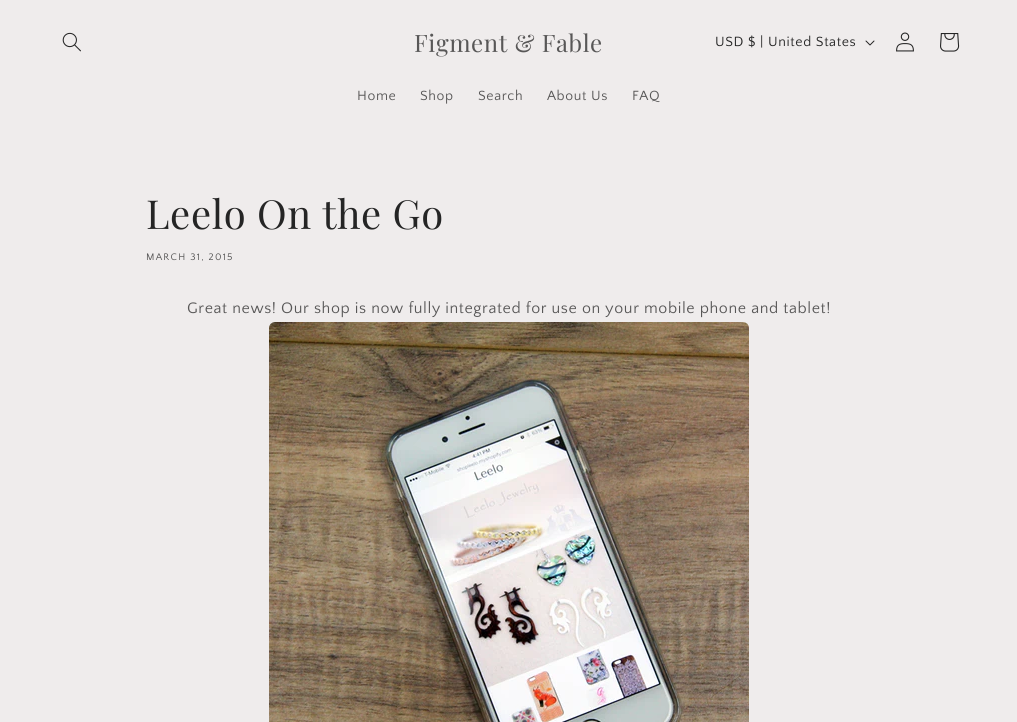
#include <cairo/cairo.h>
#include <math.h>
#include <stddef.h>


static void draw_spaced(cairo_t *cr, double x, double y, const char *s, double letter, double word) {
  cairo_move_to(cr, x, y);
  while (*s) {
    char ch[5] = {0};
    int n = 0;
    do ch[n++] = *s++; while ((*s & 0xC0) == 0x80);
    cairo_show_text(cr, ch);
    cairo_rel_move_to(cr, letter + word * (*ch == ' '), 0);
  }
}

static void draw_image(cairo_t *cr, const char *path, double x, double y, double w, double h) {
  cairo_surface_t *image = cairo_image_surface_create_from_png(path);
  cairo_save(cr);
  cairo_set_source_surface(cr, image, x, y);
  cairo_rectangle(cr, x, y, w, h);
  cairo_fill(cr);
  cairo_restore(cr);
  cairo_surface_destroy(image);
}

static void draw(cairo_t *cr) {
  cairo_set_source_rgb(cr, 239 / 255.0, 236 / 255.0, 236 / 255.0);
  cairo_paint(cr);
  draw_image(cr, "images/1.png", 62, 32, 19, 20);
  draw_image(cr, "images/2.png", 865, 40, 10, 6);
  draw_image(cr, "images/3.png", 896, 32, 18, 20);
  draw_image(cr, "images/4.png", 940, 33, 20, 19);
  draw_image(cr, "images/5.png", 269, 322, 480, 400);
  cairo_select_font_face(cr, "Playfair Display", CAIRO_FONT_SLANT_NORMAL, CAIRO_FONT_WEIGHT_NORMAL);
  cairo_set_font_size(cr, 24);
  cairo_set_source_rgb(cr, 88 / 255.0, 87 / 255.0, 87 / 255.0);
  draw_spaced(cr, 414, 52, "Figment & Fable", 0.6, 0);
  cairo_select_font_face(cr, "Quattrocento Sans", CAIRO_FONT_SLANT_NORMAL, CAIRO_FONT_WEIGHT_NORMAL);
  cairo_set_font_size(cr, 14);
  cairo_set_source_rgb(cr, 37 / 255.0, 37 / 255.0, 37 / 255.0);
  draw_spaced(cr, 715, 46, "USD $ | United States", 0.6, 0);
  cairo_set_source_rgb(cr, 88 / 255.0, 87 / 255.0, 87 / 255.0);
  draw_spaced(cr, 357, 100, "Home", 0.6, 0);
  draw_spaced(cr, 420, 100, "Shop", 0.6, 0);
  draw_spaced(cr, 478, 100, "Search", 0.6, 0);
  draw_spaced(cr, 547, 100, "About Us", 0.6, 0);
  draw_spaced(cr, 632, 100, "FAQ", 0.6, 0);
  cairo_select_font_face(cr, "Playfair Display", CAIRO_FONT_SLANT_NORMAL, CAIRO_FONT_WEIGHT_NORMAL);
  cairo_set_font_size(cr, 40);
  cairo_set_source_rgb(cr, 37 / 255.0, 37 / 255.0, 37 / 255.0);
  draw_spaced(cr, 146, 229, "Leelo On the Go", 0.6, 0);
  cairo_select_font_face(cr, "Quattrocento Sans", CAIRO_FONT_SLANT_NORMAL, CAIRO_FONT_WEIGHT_NORMAL);
  cairo_set_font_size(cr, 10);
  cairo_set_source_rgb(cr, 88 / 255.0, 87 / 255.0, 87 / 255.0);
  draw_spaced(cr, 146, 260, "MARCH 31, 2015", 1.25, 0);
  cairo_set_font_size(cr, 16);
  draw_spaced(cr, 187, 313, "Great news! Our shop is now fully integrated for use on your mobile phone and tablet!", 0.6, 0);
}

int main(void) {
  cairo_surface_t *surface = cairo_image_surface_create(CAIRO_FORMAT_RGB24, 1017, 722);
  cairo_t *cr = cairo_create(surface);
  cairo_font_options_t *options = cairo_font_options_create();
  cairo_font_options_set_hint_metrics(options, CAIRO_HINT_METRICS_OFF);
  cairo_font_options_set_hint_style(options, CAIRO_HINT_STYLE_NONE);
  cairo_set_font_options(cr, options);
  cairo_set_miter_limit(cr, 4);
  draw(cr);
  cairo_surface_write_to_png(surface, "out.png");
  cairo_font_options_destroy(options);
  cairo_destroy(cr);
  cairo_surface_destroy(surface);
  return 0;
}
